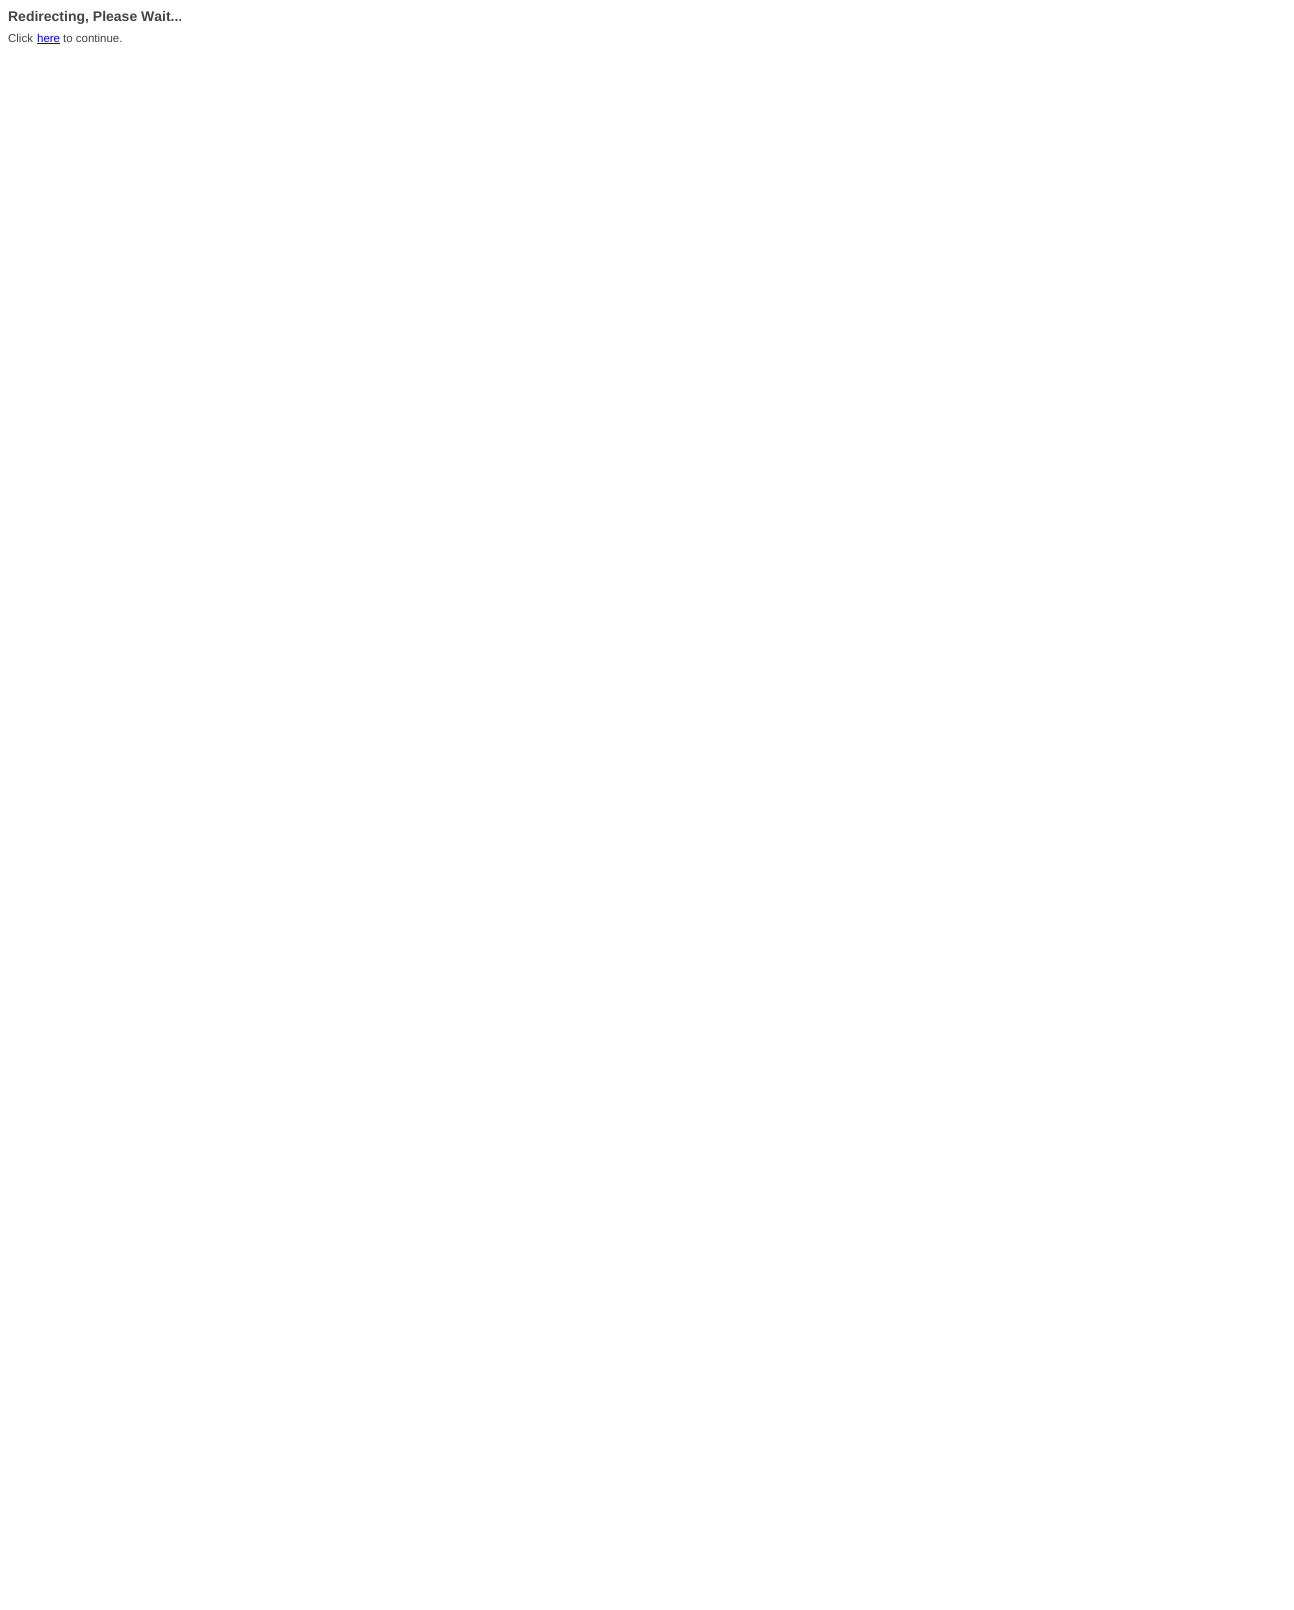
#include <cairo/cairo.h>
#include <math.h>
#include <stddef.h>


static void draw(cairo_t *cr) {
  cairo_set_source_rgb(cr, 1, 1, 1);
  cairo_paint(cr);
  cairo_set_source_rgb(cr, 0, 0, 238 / 255.0);
  cairo_rectangle(cr, 37, 43, 23, 1);
  cairo_fill(cr);
  cairo_select_font_face(cr, "Liberation Sans", CAIRO_FONT_SLANT_NORMAL, CAIRO_FONT_WEIGHT_BOLD);
  cairo_set_font_size(cr, 14);
  cairo_set_source_rgb(cr, 68 / 255.0, 68 / 255.0, 68 / 255.0);
  cairo_move_to(cr, 8, 21);
  cairo_show_text(cr, "Redirecting, Please Wait...");
  cairo_select_font_face(cr, "Liberation Sans", CAIRO_FONT_SLANT_NORMAL, CAIRO_FONT_WEIGHT_NORMAL);
  cairo_set_font_size(cr, 11.5);
  cairo_move_to(cr, 8, 42);
  cairo_show_text(cr, "Click");
  cairo_set_source_rgb(cr, 0, 0, 238 / 255.0);
  cairo_move_to(cr, 37, 42);
  cairo_show_text(cr, "here");
  cairo_set_source_rgb(cr, 68 / 255.0, 68 / 255.0, 68 / 255.0);
  cairo_move_to(cr, 63, 42);
  cairo_show_text(cr, "to continue.");
}

int main(void) {
  cairo_surface_t *surface = cairo_image_surface_create(CAIRO_FORMAT_RGB24, 1294, 1610);
  cairo_t *cr = cairo_create(surface);
  cairo_font_options_t *options = cairo_font_options_create();
  cairo_font_options_set_hint_metrics(options, CAIRO_HINT_METRICS_OFF);
  cairo_font_options_set_hint_style(options, CAIRO_HINT_STYLE_NONE);
  cairo_set_font_options(cr, options);
  cairo_set_miter_limit(cr, 4);
  draw(cr);
  cairo_surface_write_to_png(surface, "out.png");
  cairo_font_options_destroy(options);
  cairo_destroy(cr);
  cairo_surface_destroy(surface);
  return 0;
}
